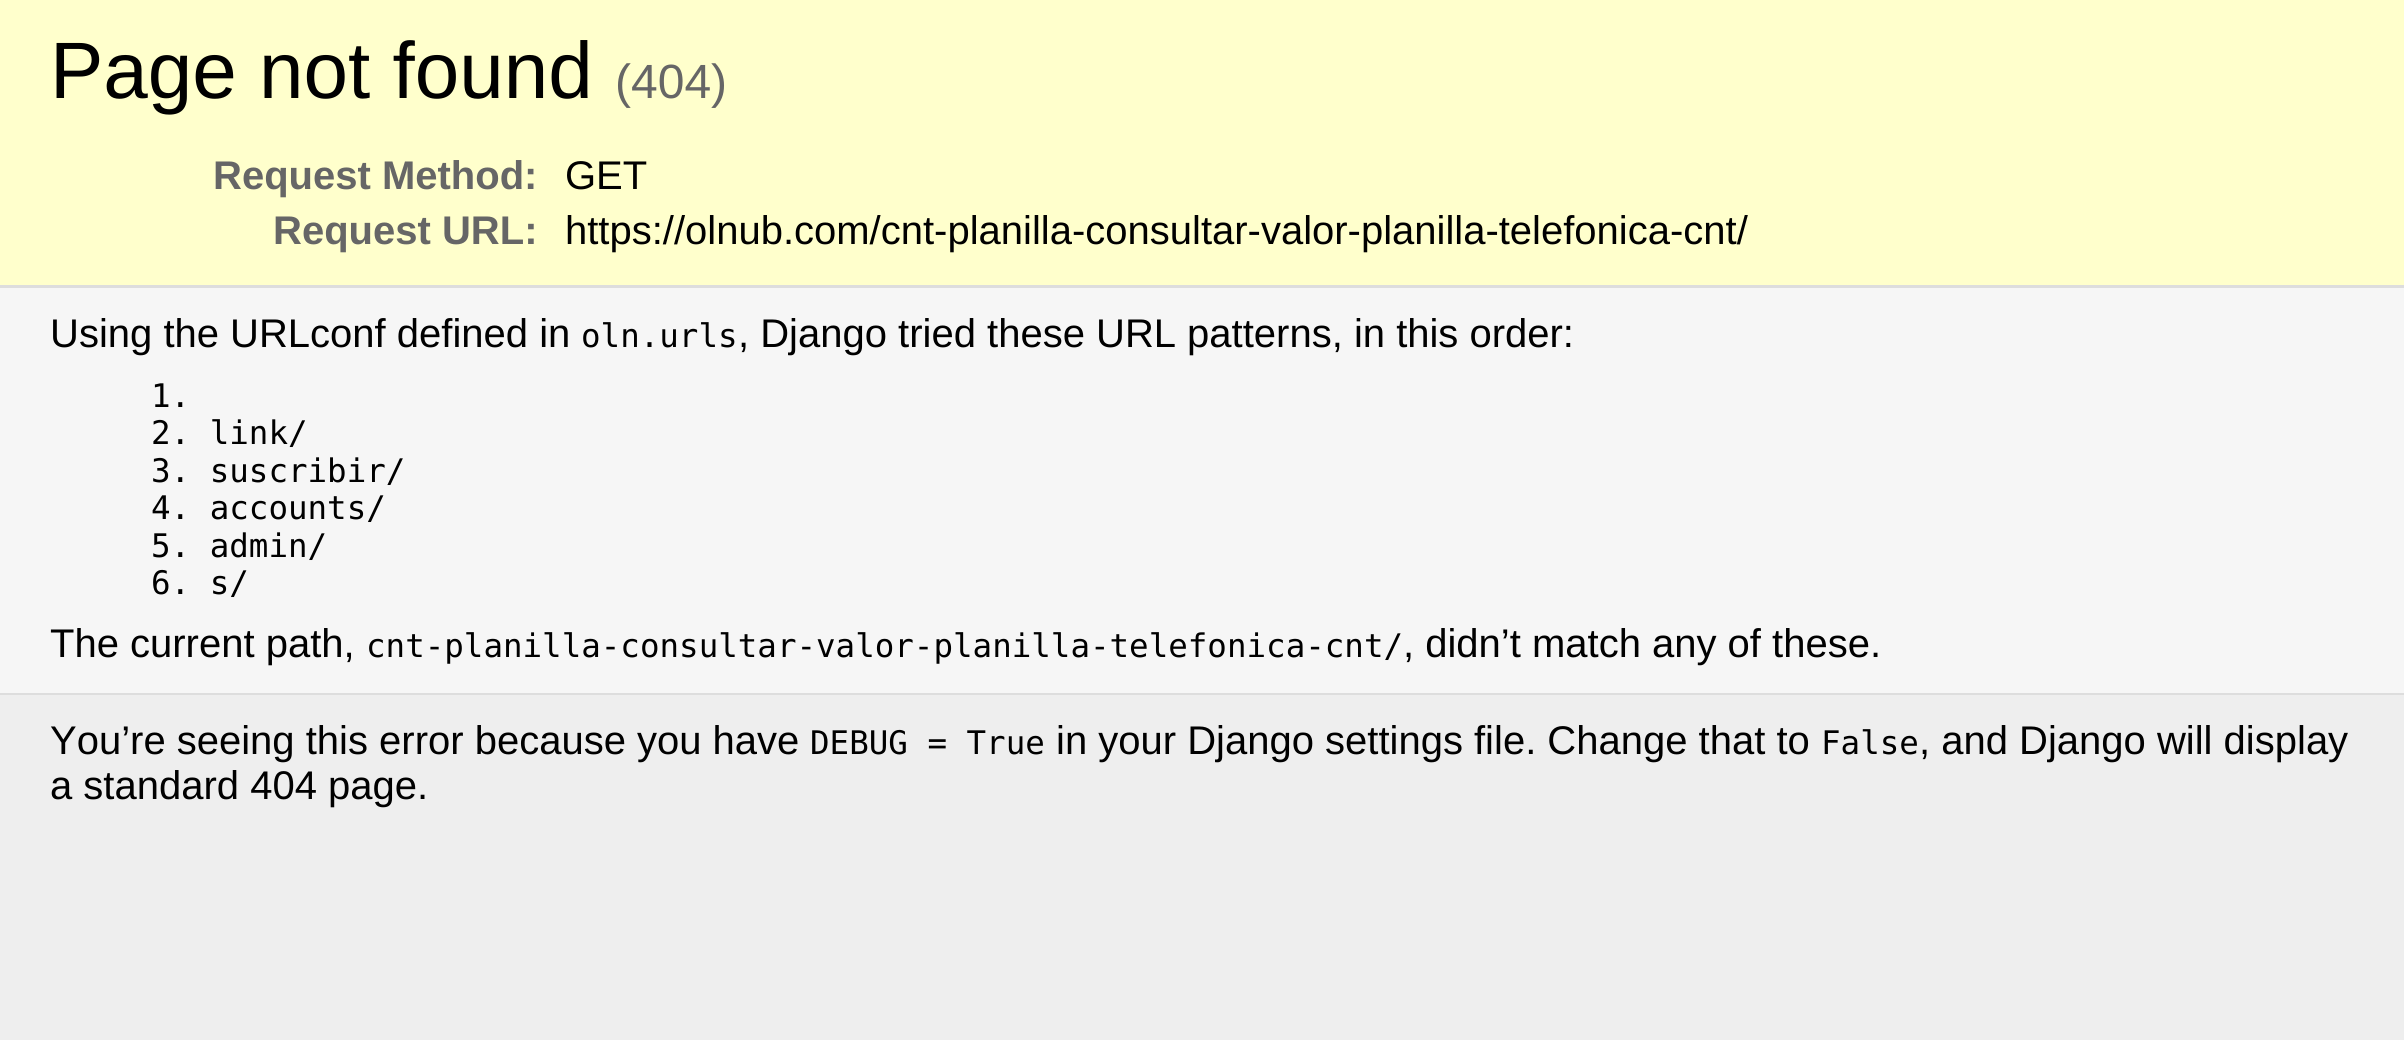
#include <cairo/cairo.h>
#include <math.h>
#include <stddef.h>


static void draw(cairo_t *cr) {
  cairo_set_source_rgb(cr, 238 / 255.0, 238 / 255.0, 238 / 255.0);
  cairo_paint(cr);
  cairo_set_source_rgb(cr, 1, 1, 204 / 255.0);
  cairo_rectangle(cr, 0, 0, 2404, 285);
  cairo_fill(cr);
  cairo_set_source_rgb(cr, 221 / 255.0, 221 / 255.0, 221 / 255.0);
  cairo_rectangle(cr, 0, 285, 2404, 3);
  cairo_fill(cr);
  cairo_set_source_rgb(cr, 246 / 255.0, 246 / 255.0, 246 / 255.0);
  cairo_rectangle(cr, 0, 288, 2404, 405);
  cairo_fill(cr);
  cairo_set_source_rgb(cr, 221 / 255.0, 221 / 255.0, 221 / 255.0);
  cairo_rectangle(cr, 0, 693, 2404, 2);
  cairo_fill(cr);
  cairo_select_font_face(cr, "Liberation Sans", CAIRO_FONT_SLANT_NORMAL, CAIRO_FONT_WEIGHT_NORMAL);
  cairo_set_font_size(cr, 80);
  cairo_set_source_rgb(cr, 0, 0, 0);
  cairo_move_to(cr, 50, 98);
  cairo_show_text(cr, "Page not found");
  cairo_set_font_size(cr, 48);
  cairo_set_source_rgb(cr, 102 / 255.0, 102 / 255.0, 102 / 255.0);
  cairo_move_to(cr, 615, 98);
  cairo_show_text(cr, "(404)");
  cairo_select_font_face(cr, "Liberation Sans", CAIRO_FONT_SLANT_NORMAL, CAIRO_FONT_WEIGHT_BOLD);
  cairo_set_font_size(cr, 40);
  cairo_move_to(cr, 213, 189);
  cairo_show_text(cr, "Request Method:");
  cairo_select_font_face(cr, "Liberation Sans", CAIRO_FONT_SLANT_NORMAL, CAIRO_FONT_WEIGHT_NORMAL);
  cairo_set_source_rgb(cr, 0, 0, 0);
  cairo_move_to(cr, 565, 189);
  cairo_show_text(cr, "GET");
  cairo_select_font_face(cr, "Liberation Sans", CAIRO_FONT_SLANT_NORMAL, CAIRO_FONT_WEIGHT_BOLD);
  cairo_set_source_rgb(cr, 102 / 255.0, 102 / 255.0, 102 / 255.0);
  cairo_move_to(cr, 273, 244);
  cairo_show_text(cr, "Request URL:");
  cairo_select_font_face(cr, "Liberation Sans", CAIRO_FONT_SLANT_NORMAL, CAIRO_FONT_WEIGHT_NORMAL);
  cairo_set_source_rgb(cr, 0, 0, 0);
  cairo_move_to(cr, 565, 244);
  cairo_show_text(cr, "https://olnub.com/cnt-planilla-consultar-valor-planilla-telefonica-cnt/");
  cairo_move_to(cr, 50, 347);
  cairo_show_text(cr, "Using the URLconf defined in");
  cairo_select_font_face(cr, "DejaVu Sans Mono", CAIRO_FONT_SLANT_NORMAL, CAIRO_FONT_WEIGHT_NORMAL);
  cairo_set_font_size(cr, 32.5);
  cairo_move_to(cr, 581, 347);
  cairo_show_text(cr, "oln.urls");
  cairo_select_font_face(cr, "Liberation Sans", CAIRO_FONT_SLANT_NORMAL, CAIRO_FONT_WEIGHT_NORMAL);
  cairo_set_font_size(cr, 40);
  cairo_move_to(cr, 738, 347);
  cairo_show_text(cr, ", Django tried these URL patterns, in this order:");
  cairo_select_font_face(cr, "DejaVu Sans Mono", CAIRO_FONT_SLANT_NORMAL, CAIRO_FONT_WEIGHT_NORMAL);
  cairo_set_font_size(cr, 32.5);
  cairo_move_to(cr, 151, 407);
  cairo_show_text(cr, "1.");
  cairo_move_to(cr, 151, 444);
  cairo_show_text(cr, "2. link/");
  cairo_move_to(cr, 151, 482);
  cairo_show_text(cr, "3. suscribir/");
  cairo_move_to(cr, 151, 519);
  cairo_show_text(cr, "4. accounts/");
  cairo_move_to(cr, 151, 557);
  cairo_show_text(cr, "5. admin/");
  cairo_move_to(cr, 151, 594);
  cairo_show_text(cr, "6. s/");
  cairo_select_font_face(cr, "Liberation Sans", CAIRO_FONT_SLANT_NORMAL, CAIRO_FONT_WEIGHT_NORMAL);
  cairo_set_font_size(cr, 40);
  cairo_move_to(cr, 50, 657);
  cairo_show_text(cr, "The current path,");
  cairo_select_font_face(cr, "DejaVu Sans Mono", CAIRO_FONT_SLANT_NORMAL, CAIRO_FONT_WEIGHT_NORMAL);
  cairo_set_font_size(cr, 32.5);
  cairo_move_to(cr, 366, 657);
  cairo_show_text(cr, "cnt-planilla-consultar-valor-planilla-telefonica-cnt/");
  cairo_select_font_face(cr, "Liberation Sans", CAIRO_FONT_SLANT_NORMAL, CAIRO_FONT_WEIGHT_NORMAL);
  cairo_set_font_size(cr, 40);
  cairo_move_to(cr, 1403, 657);
  cairo_show_text(cr, ", didn’t match any of these.");
  cairo_move_to(cr, 50, 754);
  cairo_show_text(cr, "You’re seeing this error because you have");
  cairo_select_font_face(cr, "DejaVu Sans Mono", CAIRO_FONT_SLANT_NORMAL, CAIRO_FONT_WEIGHT_NORMAL);
  cairo_set_font_size(cr, 32.5);
  cairo_move_to(cr, 810, 754);
  cairo_show_text(cr, "DEBUG = True");
  cairo_select_font_face(cr, "Liberation Sans", CAIRO_FONT_SLANT_NORMAL, CAIRO_FONT_WEIGHT_NORMAL);
  cairo_set_font_size(cr, 40);
  cairo_move_to(cr, 1056, 754);
  cairo_show_text(cr, "in your Django settings file. Change that to");
  cairo_select_font_face(cr, "DejaVu Sans Mono", CAIRO_FONT_SLANT_NORMAL, CAIRO_FONT_WEIGHT_NORMAL);
  cairo_set_font_size(cr, 32.5);
  cairo_move_to(cr, 1821, 754);
  cairo_show_text(cr, "False");
  cairo_select_font_face(cr, "Liberation Sans", CAIRO_FONT_SLANT_NORMAL, CAIRO_FONT_WEIGHT_NORMAL);
  cairo_set_font_size(cr, 40);
  cairo_move_to(cr, 1919, 754);
  cairo_show_text(cr, ", and Django will display");
  cairo_move_to(cr, 50, 799);
  cairo_show_text(cr, "a standard 404 page.");
}

int main(void) {
  cairo_surface_t *surface = cairo_image_surface_create(CAIRO_FORMAT_RGB24, 2404, 1040);
  cairo_t *cr = cairo_create(surface);
  cairo_font_options_t *options = cairo_font_options_create();
  cairo_font_options_set_hint_metrics(options, CAIRO_HINT_METRICS_OFF);
  cairo_font_options_set_hint_style(options, CAIRO_HINT_STYLE_NONE);
  cairo_set_font_options(cr, options);
  cairo_set_miter_limit(cr, 4);
  draw(cr);
  cairo_surface_write_to_png(surface, "out.png");
  cairo_font_options_destroy(options);
  cairo_destroy(cr);
  cairo_surface_destroy(surface);
  return 0;
}
